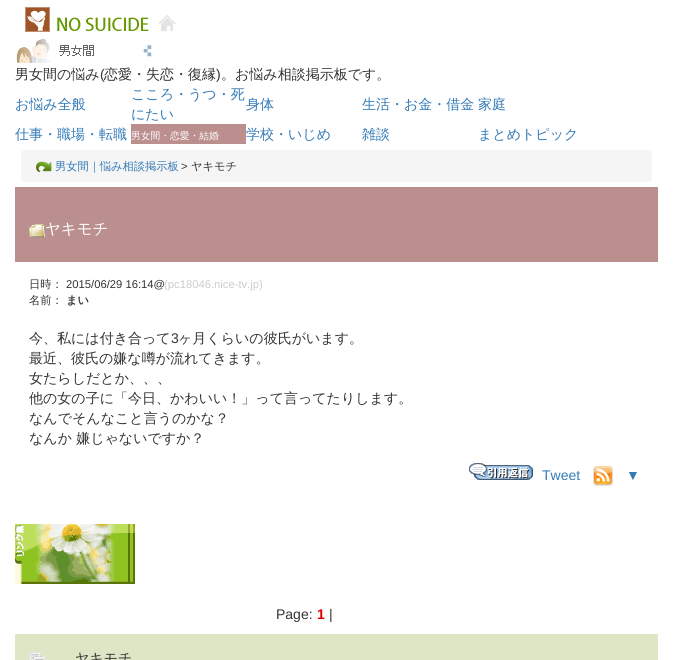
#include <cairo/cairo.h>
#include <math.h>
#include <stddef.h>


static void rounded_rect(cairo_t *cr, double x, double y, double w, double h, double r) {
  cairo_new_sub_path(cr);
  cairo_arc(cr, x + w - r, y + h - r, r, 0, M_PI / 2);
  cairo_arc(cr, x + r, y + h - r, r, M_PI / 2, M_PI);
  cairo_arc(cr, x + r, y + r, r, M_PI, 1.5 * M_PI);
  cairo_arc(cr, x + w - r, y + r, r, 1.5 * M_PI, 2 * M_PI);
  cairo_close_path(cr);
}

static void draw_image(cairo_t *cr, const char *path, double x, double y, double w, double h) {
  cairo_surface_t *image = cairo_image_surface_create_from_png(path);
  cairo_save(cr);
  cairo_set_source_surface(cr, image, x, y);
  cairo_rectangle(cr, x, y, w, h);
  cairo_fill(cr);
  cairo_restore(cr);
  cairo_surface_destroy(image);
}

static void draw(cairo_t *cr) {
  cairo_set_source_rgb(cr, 1, 1, 1);
  cairo_paint(cr);
  draw_image(cr, "images/1.png", 25, 7, 151, 26);
  draw_image(cr, "images/2.png", 15, 39, 138, 24);
  cairo_set_source_rgb(cr, 188 / 255.0, 143 / 255.0, 143 / 255.0);
  cairo_rectangle(cr, 131, 124, 115, 20);
  cairo_fill(cr);
  cairo_set_source_rgb(cr, 245 / 255.0, 245 / 255.0, 245 / 255.0);
  rounded_rect(cr, 21, 150, 631, 32, 4);
  cairo_fill(cr);
  draw_image(cr, "images/3.png", 36, 161, 16, 11);
  cairo_set_source_rgb(cr, 188 / 255.0, 143 / 255.0, 143 / 255.0);
  cairo_rectangle(cr, 15, 187, 643, 75);
  cairo_fill(cr);
  draw_image(cr, "images/4.png", 29, 224, 16, 13);
  draw_image(cr, "images/5.png", 469, 463, 64, 17);
  draw_image(cr, "images/6.png", 593, 466, 20, 20);
  draw_image(cr, "images/7.png", 15, 524, 120, 60);
  cairo_set_source_rgb(cr, 223 / 255.0, 230 / 255.0, 198 / 255.0);
  cairo_rectangle(cr, 15, 634, 643, 26);
  cairo_fill(cr);
  draw_image(cr, "images/8.png", 29, 652, 16, 8);
  cairo_select_font_face(cr, "WenQuanYi Zen Hei Medium", CAIRO_FONT_SLANT_NORMAL, CAIRO_FONT_WEIGHT_NORMAL);
  cairo_set_font_size(cr, 14);
  cairo_set_source_rgb(cr, 51 / 255.0, 51 / 255.0, 51 / 255.0);
  cairo_move_to(cr, 15, 79);
  cairo_show_text(cr, "男女間の悩み");
  cairo_select_font_face(cr, "Liberation Sans", CAIRO_FONT_SLANT_NORMAL, CAIRO_FONT_WEIGHT_NORMAL);
  cairo_move_to(cr, 100, 79);
  cairo_show_text(cr, "(");
  cairo_select_font_face(cr, "WenQuanYi Zen Hei Medium", CAIRO_FONT_SLANT_NORMAL, CAIRO_FONT_WEIGHT_NORMAL);
  cairo_move_to(cr, 104, 79);
  cairo_show_text(cr, "恋愛・失恋・復縁");
  cairo_select_font_face(cr, "Liberation Sans", CAIRO_FONT_SLANT_NORMAL, CAIRO_FONT_WEIGHT_NORMAL);
  cairo_move_to(cr, 216, 79);
  cairo_show_text(cr, ")");
  cairo_select_font_face(cr, "WenQuanYi Zen Hei Medium", CAIRO_FONT_SLANT_NORMAL, CAIRO_FONT_WEIGHT_NORMAL);
  cairo_move_to(cr, 221, 79);
  cairo_show_text(cr, "。お悩み相談掲示板です。");
  cairo_set_source_rgb(cr, 51 / 255.0, 122 / 255.0, 183 / 255.0);
  cairo_move_to(cr, 15, 109);
  cairo_show_text(cr, "お悩み全般");
  cairo_move_to(cr, 131, 99);
  cairo_show_text(cr, "こころ・うつ・死");
  cairo_move_to(cr, 131, 119);
  cairo_show_text(cr, "にたい");
  cairo_move_to(cr, 246, 109);
  cairo_show_text(cr, "身体");
  cairo_move_to(cr, 362, 109);
  cairo_show_text(cr, "生活・お金・借金");
  cairo_move_to(cr, 478, 109);
  cairo_show_text(cr, "家庭");
  cairo_move_to(cr, 15, 139);
  cairo_show_text(cr, "仕事・職場・転職");
  cairo_set_font_size(cr, 9.75);
  cairo_set_source_rgb(cr, 1, 1, 1);
  cairo_move_to(cr, 131, 139);
  cairo_show_text(cr, "男女間・恋愛・結婚");
  cairo_set_font_size(cr, 14);
  cairo_set_source_rgb(cr, 51 / 255.0, 122 / 255.0, 183 / 255.0);
  cairo_move_to(cr, 246, 139);
  cairo_show_text(cr, "学校・いじめ");
  cairo_move_to(cr, 362, 139);
  cairo_show_text(cr, "雑談");
  cairo_move_to(cr, 478, 139);
  cairo_show_text(cr, "まとめトピック");
  cairo_set_font_size(cr, 11.25);
  cairo_move_to(cr, 55, 170);
  cairo_show_text(cr, "男女間｜悩み相談掲示板");
  cairo_select_font_face(cr, "Liberation Sans", CAIRO_FONT_SLANT_NORMAL, CAIRO_FONT_WEIGHT_NORMAL);
  cairo_set_source_rgb(cr, 51 / 255.0, 51 / 255.0, 51 / 255.0);
  cairo_move_to(cr, 181, 170);
  cairo_show_text(cr, ">");
  cairo_select_font_face(cr, "WenQuanYi Zen Hei Medium", CAIRO_FONT_SLANT_NORMAL, CAIRO_FONT_WEIGHT_NORMAL);
  cairo_move_to(cr, 191, 170);
  cairo_show_text(cr, "ヤキモチ");
  cairo_set_font_size(cr, 15.5);
  cairo_set_source_rgb(cr, 1, 1, 1);
  cairo_move_to(cr, 45, 234);
  cairo_show_text(cr, "ヤキモチ");
  cairo_set_font_size(cr, 11.25);
  cairo_set_source_rgb(cr, 51 / 255.0, 51 / 255.0, 51 / 255.0);
  cairo_move_to(cr, 29, 288);
  cairo_show_text(cr, "日時：");
  cairo_select_font_face(cr, "Liberation Sans", CAIRO_FONT_SLANT_NORMAL, CAIRO_FONT_WEIGHT_NORMAL);
  cairo_move_to(cr, 66, 288);
  cairo_show_text(cr, "2015/06/29 16:14@");
  cairo_set_source_rgb(cr, 204 / 255.0, 204 / 255.0, 204 / 255.0);
  cairo_move_to(cr, 164, 288);
  cairo_show_text(cr, "(pc18046.nice-tv.jp)");
  cairo_select_font_face(cr, "WenQuanYi Zen Hei Medium", CAIRO_FONT_SLANT_NORMAL, CAIRO_FONT_WEIGHT_NORMAL);
  cairo_set_source_rgb(cr, 51 / 255.0, 51 / 255.0, 51 / 255.0);
  cairo_move_to(cr, 29, 304);
  cairo_show_text(cr, "名前：");
  cairo_select_font_face(cr, "WenQuanYi Zen Hei", CAIRO_FONT_SLANT_NORMAL, CAIRO_FONT_WEIGHT_BOLD);
  cairo_move_to(cr, 66, 304);
  cairo_show_text(cr, "まい");
  cairo_select_font_face(cr, "WenQuanYi Zen Hei Medium", CAIRO_FONT_SLANT_NORMAL, CAIRO_FONT_WEIGHT_NORMAL);
  cairo_set_font_size(cr, 14);
  cairo_move_to(cr, 29, 343);
  cairo_show_text(cr, "今、私には付き合って");
  cairo_select_font_face(cr, "Liberation Sans", CAIRO_FONT_SLANT_NORMAL, CAIRO_FONT_WEIGHT_NORMAL);
  cairo_move_to(cr, 171, 343);
  cairo_show_text(cr, "3");
  cairo_select_font_face(cr, "WenQuanYi Zen Hei Medium", CAIRO_FONT_SLANT_NORMAL, CAIRO_FONT_WEIGHT_NORMAL);
  cairo_move_to(cr, 178, 343);
  cairo_show_text(cr, "ヶ月くらいの彼氏がいます。");
  cairo_move_to(cr, 29, 363);
  cairo_show_text(cr, "最近、彼氏の嫌な噂が流れてきます。");
  cairo_move_to(cr, 29, 383);
  cairo_show_text(cr, "女たらしだとか、、、");
  cairo_move_to(cr, 29, 403);
  cairo_show_text(cr, "他の女の子に「今日、かわいい！」って言ってたりします。");
  cairo_move_to(cr, 29, 423);
  cairo_show_text(cr, "なんでそんなこと言うのかな？");
  cairo_move_to(cr, 29, 443);
  cairo_show_text(cr, "なんか 嫌じゃないですか？");
  cairo_select_font_face(cr, "Liberation Sans", CAIRO_FONT_SLANT_NORMAL, CAIRO_FONT_WEIGHT_NORMAL);
  cairo_set_source_rgb(cr, 51 / 255.0, 122 / 255.0, 183 / 255.0);
  cairo_move_to(cr, 542, 480);
  cairo_show_text(cr, "Tweet");
  cairo_move_to(cr, 626, 480);
  cairo_show_text(cr, "▼");
  cairo_set_source_rgb(cr, 51 / 255.0, 51 / 255.0, 51 / 255.0);
  cairo_move_to(cr, 276, 619);
  cairo_show_text(cr, "Page:");
  cairo_select_font_face(cr, "Liberation Sans", CAIRO_FONT_SLANT_NORMAL, CAIRO_FONT_WEIGHT_BOLD);
  cairo_set_source_rgb(cr, 221 / 255.0, 0, 0);
  cairo_move_to(cr, 317, 619);
  cairo_show_text(cr, "1");
  cairo_select_font_face(cr, "Liberation Sans", CAIRO_FONT_SLANT_NORMAL, CAIRO_FONT_WEIGHT_NORMAL);
  cairo_set_source_rgb(cr, 51 / 255.0, 51 / 255.0, 51 / 255.0);
  cairo_move_to(cr, 329, 619);
  cairo_show_text(cr, "|");
  cairo_select_font_face(cr, "WenQuanYi Zen Hei Medium", CAIRO_FONT_SLANT_NORMAL, CAIRO_FONT_WEIGHT_NORMAL);
  cairo_move_to(cr, 75, 663);
  cairo_show_text(cr, "ヤキモチ");
}

int main(void) {
  cairo_surface_t *surface = cairo_image_surface_create(CAIRO_FORMAT_RGB24, 673, 660);
  cairo_t *cr = cairo_create(surface);
  cairo_font_options_t *options = cairo_font_options_create();
  cairo_font_options_set_hint_metrics(options, CAIRO_HINT_METRICS_OFF);
  cairo_font_options_set_hint_style(options, CAIRO_HINT_STYLE_NONE);
  cairo_set_font_options(cr, options);
  cairo_set_miter_limit(cr, 4);
  draw(cr);
  cairo_surface_write_to_png(surface, "out.png");
  cairo_font_options_destroy(options);
  cairo_destroy(cr);
  cairo_surface_destroy(surface);
  return 0;
}
